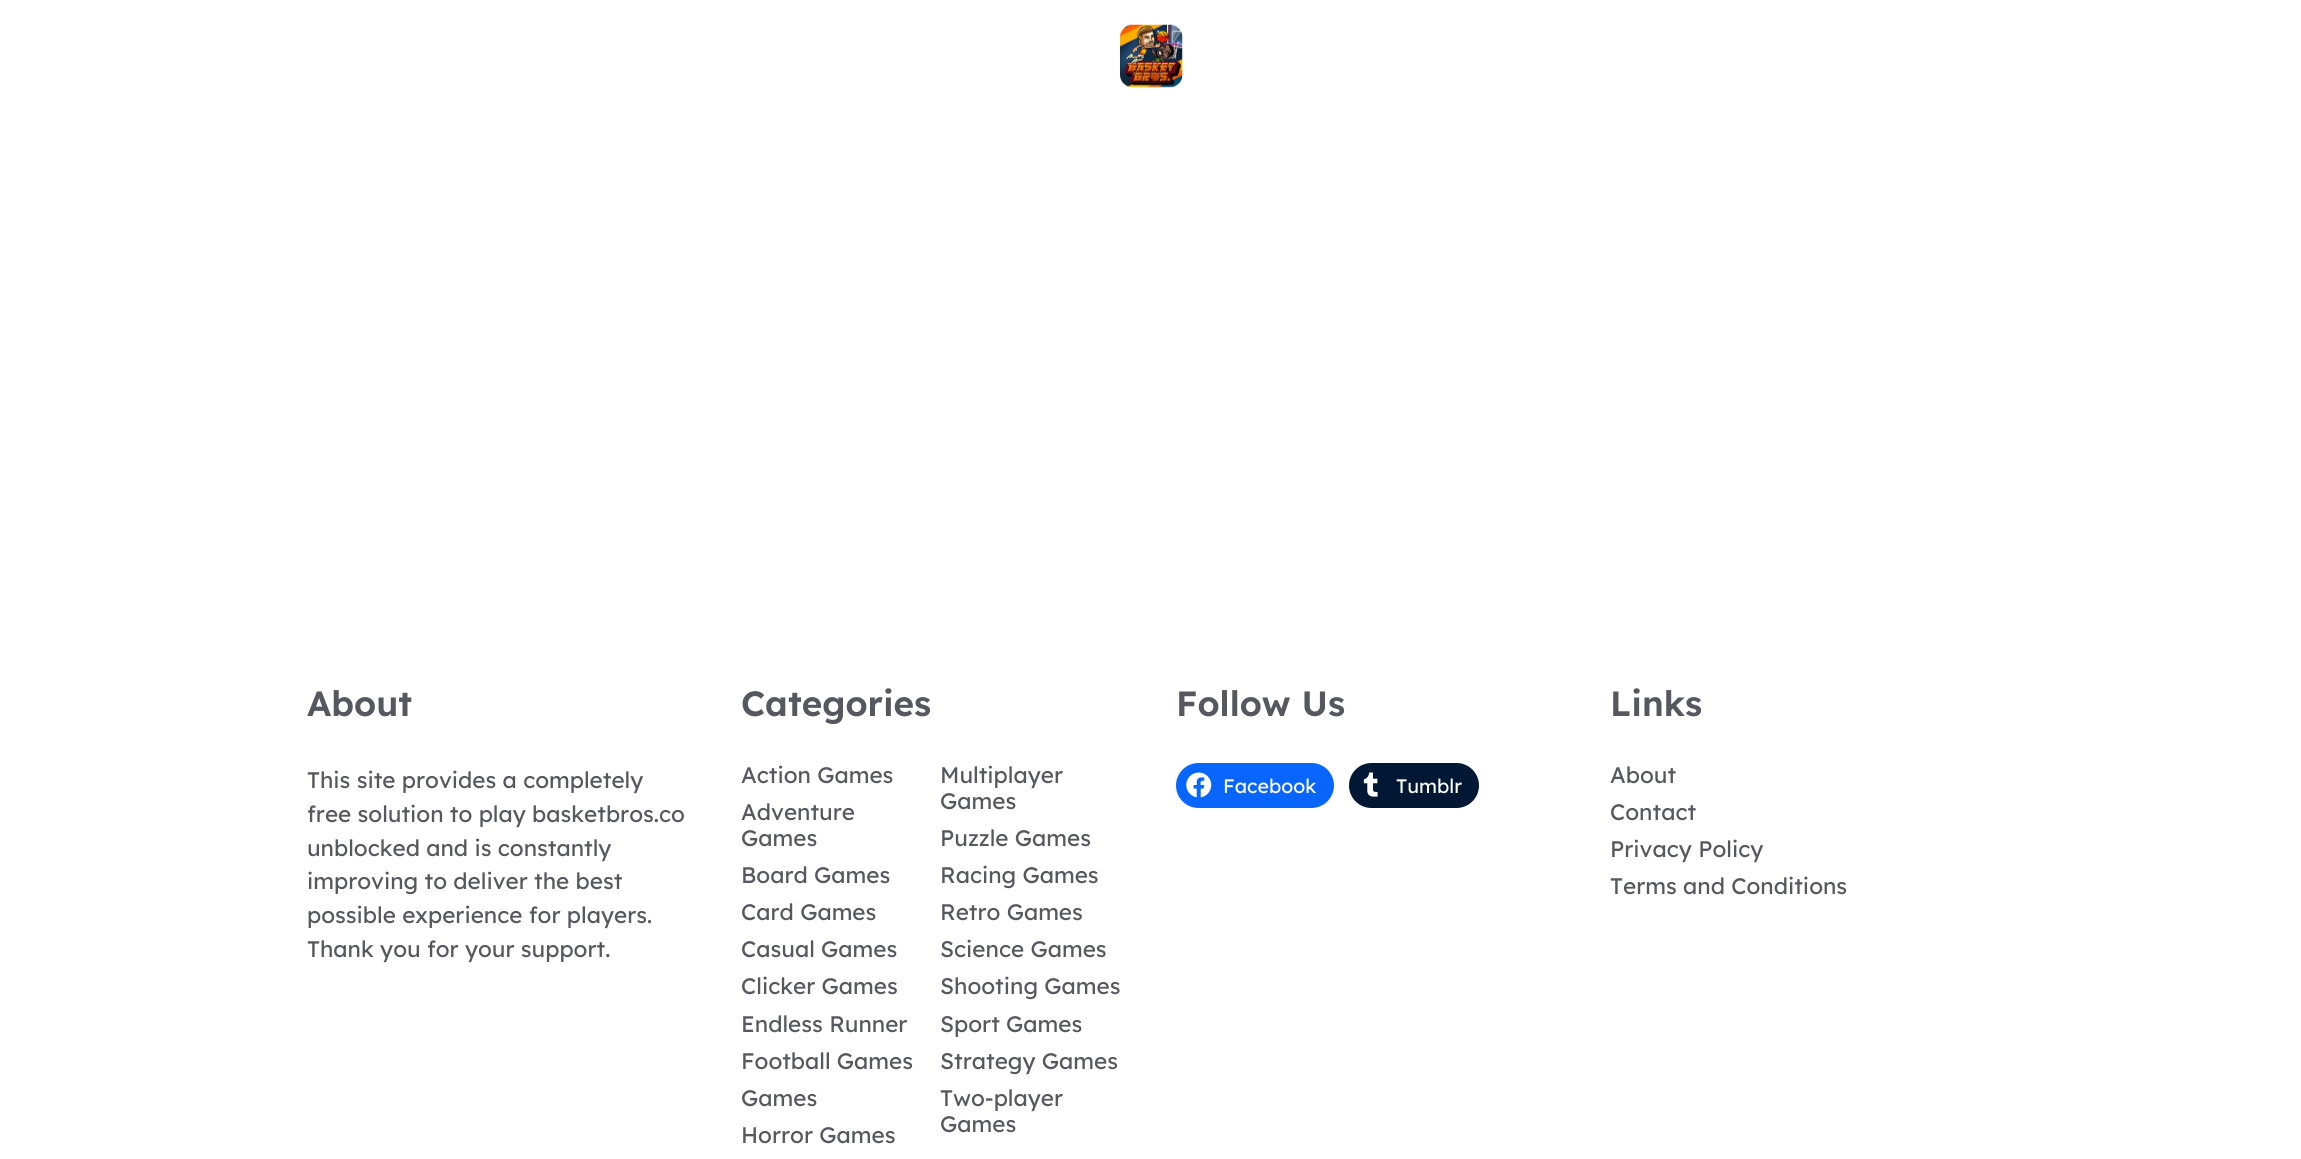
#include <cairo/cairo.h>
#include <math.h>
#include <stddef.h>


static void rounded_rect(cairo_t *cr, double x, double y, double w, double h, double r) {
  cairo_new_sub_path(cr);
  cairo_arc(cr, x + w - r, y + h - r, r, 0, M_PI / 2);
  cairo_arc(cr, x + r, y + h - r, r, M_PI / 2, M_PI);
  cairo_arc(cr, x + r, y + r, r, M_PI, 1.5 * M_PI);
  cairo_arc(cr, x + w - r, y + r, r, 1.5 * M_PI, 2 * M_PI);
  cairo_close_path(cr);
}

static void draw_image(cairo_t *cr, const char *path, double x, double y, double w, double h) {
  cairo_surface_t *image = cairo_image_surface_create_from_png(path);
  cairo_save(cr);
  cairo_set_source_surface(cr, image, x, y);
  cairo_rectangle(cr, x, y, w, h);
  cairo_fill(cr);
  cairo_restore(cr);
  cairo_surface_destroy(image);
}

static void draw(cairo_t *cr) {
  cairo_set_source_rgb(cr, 1, 1, 1);
  cairo_paint(cr);
  draw_image(cr, "images/1.png", 1120, 24, 63, 64);
  cairo_set_source_rgb(cr, 8 / 255.0, 102 / 255.0, 1);
  rounded_rect(cr, 1176, 763, 158, 45, 22.5);
  cairo_fill(cr);
  draw_image(cr, "images/2.png", 1186, 772, 26, 26);
  cairo_set_source_rgb(cr, 1 / 255.0, 24 / 255.0, 53 / 255.0);
  rounded_rect(cr, 1349, 763, 130, 45, 22.5);
  cairo_fill(cr);
  draw_image(cr, "images/3.png", 1363, 772, 15, 25);
  cairo_select_font_face(cr, "Lexend Deca SemiBold", CAIRO_FONT_SLANT_NORMAL, CAIRO_FONT_WEIGHT_NORMAL);
  cairo_set_font_size(cr, 35);
  cairo_set_source_rgb(cr, 87 / 255.0, 87 / 255.0, 96 / 255.0);
  cairo_move_to(cr, 307, 716);
  cairo_show_text(cr, "About");
  cairo_select_font_face(cr, "Lexend Deca", CAIRO_FONT_SLANT_NORMAL, CAIRO_FONT_WEIGHT_NORMAL);
  cairo_set_font_size(cr, 22.5);
  cairo_move_to(cr, 307, 788);
  cairo_show_text(cr, "This site provides a completely");
  cairo_move_to(cr, 307, 822);
  cairo_show_text(cr, "free solution to play basketbros.co");
  cairo_move_to(cr, 307, 856);
  cairo_show_text(cr, "unblocked and is constantly");
  cairo_move_to(cr, 307, 889);
  cairo_show_text(cr, "improving to deliver the best");
  cairo_move_to(cr, 307, 923);
  cairo_show_text(cr, "possible experience for players.");
  cairo_move_to(cr, 307, 957);
  cairo_show_text(cr, "Thank you for your support.");
  cairo_select_font_face(cr, "Lexend Deca SemiBold", CAIRO_FONT_SLANT_NORMAL, CAIRO_FONT_WEIGHT_NORMAL);
  cairo_set_font_size(cr, 35);
  cairo_move_to(cr, 741, 716);
  cairo_show_text(cr, "Categories");
  cairo_select_font_face(cr, "Lexend Deca", CAIRO_FONT_SLANT_NORMAL, CAIRO_FONT_WEIGHT_NORMAL);
  cairo_set_font_size(cr, 22.5);
  cairo_move_to(cr, 741, 783);
  cairo_show_text(cr, "Action Games");
  cairo_move_to(cr, 940, 783);
  cairo_show_text(cr, "Multiplayer");
  cairo_move_to(cr, 940, 809);
  cairo_show_text(cr, "Games");
  cairo_move_to(cr, 741, 820);
  cairo_show_text(cr, "Adventure");
  cairo_move_to(cr, 741, 846);
  cairo_show_text(cr, "Games");
  cairo_move_to(cr, 940, 846);
  cairo_show_text(cr, "Puzzle Games");
  cairo_move_to(cr, 741, 883);
  cairo_show_text(cr, "Board Games");
  cairo_move_to(cr, 940, 883);
  cairo_show_text(cr, "Racing Games");
  cairo_move_to(cr, 741, 920);
  cairo_show_text(cr, "Card Games");
  cairo_move_to(cr, 940, 920);
  cairo_show_text(cr, "Retro Games");
  cairo_move_to(cr, 741, 957);
  cairo_show_text(cr, "Casual Games");
  cairo_move_to(cr, 940, 957);
  cairo_show_text(cr, "Science Games");
  cairo_move_to(cr, 741, 994);
  cairo_show_text(cr, "Clicker Games");
  cairo_move_to(cr, 940, 994);
  cairo_show_text(cr, "Shooting Games");
  cairo_move_to(cr, 741, 1032);
  cairo_show_text(cr, "Endless Runner");
  cairo_move_to(cr, 940, 1032);
  cairo_show_text(cr, "Sport Games");
  cairo_move_to(cr, 741, 1069);
  cairo_show_text(cr, "Football Games");
  cairo_move_to(cr, 940, 1069);
  cairo_show_text(cr, "Strategy Games");
  cairo_move_to(cr, 741, 1106);
  cairo_show_text(cr, "Games");
  cairo_move_to(cr, 940, 1106);
  cairo_show_text(cr, "Two-player");
  cairo_move_to(cr, 940, 1132);
  cairo_show_text(cr, "Games");
  cairo_move_to(cr, 741, 1143);
  cairo_show_text(cr, "Horror Games");
  cairo_select_font_face(cr, "Lexend Deca SemiBold", CAIRO_FONT_SLANT_NORMAL, CAIRO_FONT_WEIGHT_NORMAL);
  cairo_set_font_size(cr, 35);
  cairo_move_to(cr, 1176, 716);
  cairo_show_text(cr, "Follow Us");
  cairo_select_font_face(cr, "Lexend Deca", CAIRO_FONT_SLANT_NORMAL, CAIRO_FONT_WEIGHT_NORMAL);
  cairo_set_font_size(cr, 19.5);
  cairo_set_source_rgb(cr, 1, 1, 1);
  cairo_move_to(cr, 1223, 793);
  cairo_show_text(cr, "Facebook");
  cairo_move_to(cr, 1396, 793);
  cairo_show_text(cr, "Tumblr");
  cairo_select_font_face(cr, "Lexend Deca SemiBold", CAIRO_FONT_SLANT_NORMAL, CAIRO_FONT_WEIGHT_NORMAL);
  cairo_set_font_size(cr, 35);
  cairo_set_source_rgb(cr, 87 / 255.0, 87 / 255.0, 96 / 255.0);
  cairo_move_to(cr, 1610, 716);
  cairo_show_text(cr, "Links");
  cairo_select_font_face(cr, "Lexend Deca", CAIRO_FONT_SLANT_NORMAL, CAIRO_FONT_WEIGHT_NORMAL);
  cairo_set_font_size(cr, 22.5);
  cairo_move_to(cr, 1610, 783);
  cairo_show_text(cr, "About");
  cairo_move_to(cr, 1610, 820);
  cairo_show_text(cr, "Contact");
  cairo_move_to(cr, 1610, 857);
  cairo_show_text(cr, "Privacy Policy");
  cairo_move_to(cr, 1610, 894);
  cairo_show_text(cr, "Terms and Conditions");
}

int main(void) {
  cairo_surface_t *surface = cairo_image_surface_create(CAIRO_FORMAT_RGB24, 2301, 1159);
  cairo_t *cr = cairo_create(surface);
  cairo_font_options_t *options = cairo_font_options_create();
  cairo_font_options_set_hint_metrics(options, CAIRO_HINT_METRICS_OFF);
  cairo_font_options_set_hint_style(options, CAIRO_HINT_STYLE_NONE);
  cairo_set_font_options(cr, options);
  cairo_set_miter_limit(cr, 4);
  draw(cr);
  cairo_surface_write_to_png(surface, "out.png");
  cairo_font_options_destroy(options);
  cairo_destroy(cr);
  cairo_surface_destroy(surface);
  return 0;
}
